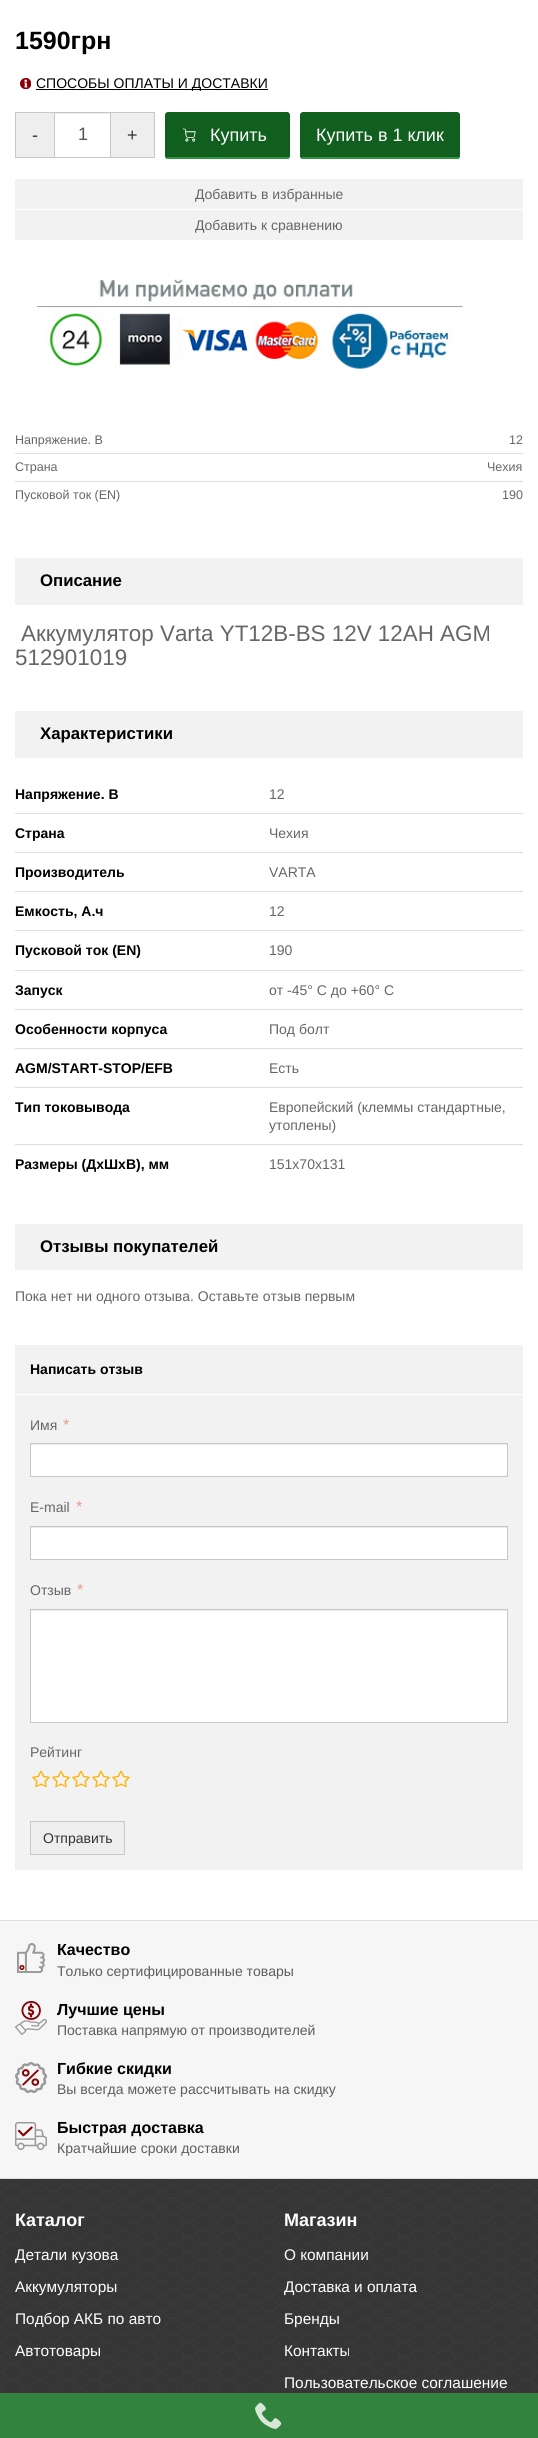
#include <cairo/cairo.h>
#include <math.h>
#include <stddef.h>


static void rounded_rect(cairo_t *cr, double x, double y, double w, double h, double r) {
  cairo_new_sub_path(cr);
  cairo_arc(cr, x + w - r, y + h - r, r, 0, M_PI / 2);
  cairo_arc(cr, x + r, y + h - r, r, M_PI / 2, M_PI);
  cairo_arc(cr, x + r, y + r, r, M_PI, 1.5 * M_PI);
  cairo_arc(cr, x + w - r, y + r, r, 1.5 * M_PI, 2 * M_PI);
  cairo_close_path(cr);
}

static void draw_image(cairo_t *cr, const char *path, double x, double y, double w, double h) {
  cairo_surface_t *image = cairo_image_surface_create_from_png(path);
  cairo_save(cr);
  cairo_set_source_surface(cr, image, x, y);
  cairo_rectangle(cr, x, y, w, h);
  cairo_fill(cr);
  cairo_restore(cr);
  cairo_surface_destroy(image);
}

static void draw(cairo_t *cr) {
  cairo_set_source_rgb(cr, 1, 1, 1);
  cairo_paint(cr);
  draw_image(cr, "images/1.png", 20, 78, 11, 11);
  cairo_set_source_rgb(cr, 0, 0, 0);
  cairo_rectangle(cr, 36, 89, 232, 1);
  cairo_fill(cr);
  cairo_set_source_rgb(cr, 238 / 255.0, 238 / 255.0, 238 / 255.0);
  cairo_rectangle(cr, 15.5, 112.5, 39, 45);
  cairo_fill_preserve(cr);
  cairo_set_source_rgb(cr, 199 / 255.0, 199 / 255.0, 199 / 255.0);
  cairo_set_line_width(cr, 1);
  cairo_stroke(cr);
  cairo_set_source_rgb(cr, 236 / 255.0, 236 / 255.0, 236 / 255.0);
  cairo_rectangle(cr, 55, 113, 55, 1);
  cairo_fill(cr);
  cairo_rectangle(cr, 54.5, 112.5, 56, 45);
  cairo_set_source_rgb(cr, 199 / 255.0, 199 / 255.0, 199 / 255.0);
  cairo_stroke(cr);
  cairo_set_source_rgb(cr, 238 / 255.0, 238 / 255.0, 238 / 255.0);
  cairo_rectangle(cr, 110.5, 112.5, 44, 45);
  cairo_fill_preserve(cr);
  cairo_set_source_rgb(cr, 199 / 255.0, 199 / 255.0, 199 / 255.0);
  cairo_stroke(cr);
  cairo_set_source_rgb(cr, 17 / 255.0, 95 / 255.0, 30 / 255.0);
  rounded_rect(cr, 165, 112, 125, 47, 3);
  cairo_fill(cr);
  cairo_set_source_rgb(cr, 48 / 255.0, 150 / 255.0, 63 / 255.0);
  cairo_rectangle(cr, 167, 157, 122, 2);
  cairo_fill(cr);
  draw_image(cr, "images/2.png", 182, 128, 14, 14);
  cairo_set_source_rgb(cr, 17 / 255.0, 95 / 255.0, 30 / 255.0);
  rounded_rect(cr, 300, 112, 160, 47, 3);
  cairo_fill(cr);
  cairo_set_source_rgb(cr, 48 / 255.0, 150 / 255.0, 63 / 255.0);
  cairo_rectangle(cr, 302, 157, 157, 2);
  cairo_fill(cr);
  cairo_set_source_rgb(cr, 242 / 255.0, 242 / 255.0, 242 / 255.0);
  cairo_rectangle(cr, 15, 179, 508, 30);
  cairo_fill(cr);
  cairo_rectangle(cr, 15, 210, 508, 30);
  cairo_fill(cr);
  draw_image(cr, "images/3.png", 31, 279, 437, 93);
  cairo_set_source_rgb(cr, 221 / 255.0, 221 / 255.0, 221 / 255.0);
  cairo_rectangle(cr, 15, 453, 508, 1);
  cairo_fill(cr);
  cairo_rectangle(cr, 15, 481, 508, 1);
  cairo_fill(cr);
  cairo_set_source_rgb(cr, 242 / 255.0, 242 / 255.0, 242 / 255.0);
  cairo_rectangle(cr, 15, 558, 508, 47);
  cairo_fill(cr);
  cairo_rectangle(cr, 15, 711, 508, 47);
  cairo_fill(cr);
  cairo_set_source_rgb(cr, 221 / 255.0, 221 / 255.0, 221 / 255.0);
  cairo_rectangle(cr, 15, 813, 508, 1);
  cairo_fill(cr);
  cairo_rectangle(cr, 15, 852, 508, 1);
  cairo_fill(cr);
  cairo_rectangle(cr, 15, 891, 508, 1);
  cairo_fill(cr);
  cairo_rectangle(cr, 15, 930, 508, 1);
  cairo_fill(cr);
  cairo_rectangle(cr, 15, 970, 508, 1);
  cairo_fill(cr);
  cairo_rectangle(cr, 15, 1009, 508, 1);
  cairo_fill(cr);
  cairo_rectangle(cr, 15, 1048, 508, 1);
  cairo_fill(cr);
  cairo_rectangle(cr, 15, 1087, 508, 1);
  cairo_fill(cr);
  cairo_rectangle(cr, 15, 1144, 508, 1);
  cairo_fill(cr);
  cairo_set_source_rgb(cr, 242 / 255.0, 242 / 255.0, 242 / 255.0);
  cairo_rectangle(cr, 15, 1224, 508, 46);
  cairo_fill(cr);
  cairo_rectangle(cr, 15, 1345, 508, 49);
  cairo_fill(cr);
  cairo_rectangle(cr, 15, 1395, 508, 475);
  cairo_fill(cr);
  cairo_set_source_rgb(cr, 1, 1, 1);
  cairo_rectangle(cr, 31, 1445, 476, 31);
  cairo_fill(cr);
  cairo_set_source_rgb(cr, 236 / 255.0, 236 / 255.0, 236 / 255.0);
  cairo_rectangle(cr, 31, 1444, 476, 1);
  cairo_fill(cr);
  cairo_rectangle(cr, 30.5, 1443.5, 477, 33);
  cairo_set_source_rgb(cr, 199 / 255.0, 199 / 255.0, 199 / 255.0);
  cairo_stroke(cr);
  cairo_set_source_rgb(cr, 1, 1, 1);
  cairo_rectangle(cr, 31, 1528, 476, 31);
  cairo_fill(cr);
  cairo_set_source_rgb(cr, 236 / 255.0, 236 / 255.0, 236 / 255.0);
  cairo_rectangle(cr, 31, 1527, 476, 1);
  cairo_fill(cr);
  cairo_rectangle(cr, 30.5, 1526.5, 477, 33);
  cairo_set_source_rgb(cr, 199 / 255.0, 199 / 255.0, 199 / 255.0);
  cairo_stroke(cr);
  cairo_set_source_rgb(cr, 1, 1, 1);
  cairo_rectangle(cr, 31, 1611, 476, 111);
  cairo_fill(cr);
  cairo_set_source_rgb(cr, 236 / 255.0, 236 / 255.0, 236 / 255.0);
  cairo_rectangle(cr, 31, 1610, 476, 1);
  cairo_fill(cr);
  cairo_rectangle(cr, 30.5, 1609.5, 477, 113);
  cairo_set_source_rgb(cr, 199 / 255.0, 199 / 255.0, 199 / 255.0);
  cairo_stroke(cr);
  draw_image(cr, "images/4.png", 32, 1770, 18, 18);
  draw_image(cr, "images/4.png", 52, 1770, 18, 18);
  draw_image(cr, "images/5.png", 72, 1770, 18, 18);
  draw_image(cr, "images/5.png", 92, 1770, 18, 18);
  draw_image(cr, "images/5.png", 112, 1770, 18, 18);
  cairo_set_source_rgb(cr, 238 / 255.0, 238 / 255.0, 238 / 255.0);
  cairo_rectangle(cr, 30.5, 1821.5, 94, 33);
  cairo_fill_preserve(cr);
  cairo_set_source_rgb(cr, 199 / 255.0, 199 / 255.0, 199 / 255.0);
  cairo_stroke(cr);
  draw_image(cr, "images/6.png", 0, 2179, 538, 259);
  cairo_set_source_rgb(cr, 246 / 255.0, 246 / 255.0, 246 / 255.0);
  cairo_rectangle(cr, 0, 1921, 538, 257);
  cairo_fill(cr);
  cairo_set_source_rgb(cr, 221 / 255.0, 221 / 255.0, 221 / 255.0);
  cairo_rectangle(cr, 0, 1920, 538, 1);
  cairo_fill(cr);
  draw_image(cr, "images/7.png", 17, 1943, 28, 30);
  draw_image(cr, "images/8.png", 15, 2001, 32, 34);
  draw_image(cr, "images/9.png", 15, 2062, 32, 31);
  draw_image(cr, "images/10.png", 15, 2122, 32, 28);
  cairo_rectangle(cr, 0, 2178, 538, 1);
  cairo_fill(cr);
  cairo_set_source_rgba(cr, 48 / 255.0, 150 / 255.0, 63 / 255.0, 0.8);
  cairo_rectangle(cr, 0, 2393, 538, 45);
  cairo_fill(cr);
  draw_image(cr, "images/11.png", 255, 2402, 27, 27);
  cairo_select_font_face(cr, "Liberation Sans", CAIRO_FONT_SLANT_NORMAL, CAIRO_FONT_WEIGHT_BOLD);
  cairo_set_font_size(cr, 25);
  cairo_set_source_rgb(cr, 0, 0, 0);
  cairo_move_to(cr, 15, 49);
  cairo_show_text(cr, "1590грн");
  cairo_select_font_face(cr, "Liberation Sans", CAIRO_FONT_SLANT_NORMAL, CAIRO_FONT_WEIGHT_NORMAL);
  cairo_set_font_size(cr, 14);
  cairo_move_to(cr, 36, 88);
  cairo_show_text(cr, "СПОСОБЫ ОПЛАТЫ И ДОСТАВКИ");
  cairo_set_font_size(cr, 18);
  cairo_set_source_rgb(cr, 51 / 255.0, 51 / 255.0, 51 / 255.0);
  cairo_move_to(cr, 32, 141);
  cairo_show_text(cr, "-");
  cairo_set_source_rgb(cr, 85 / 255.0, 85 / 255.0, 85 / 255.0);
  cairo_move_to(cr, 78, 140);
  cairo_show_text(cr, "1");
  cairo_set_source_rgb(cr, 51 / 255.0, 51 / 255.0, 51 / 255.0);
  cairo_move_to(cr, 127, 141);
  cairo_show_text(cr, "+");
  cairo_set_source_rgb(cr, 1, 1, 1);
  cairo_move_to(cr, 210, 141);
  cairo_show_text(cr, "Купить");
  cairo_move_to(cr, 316, 141);
  cairo_show_text(cr, "Купить в 1 клик");
  cairo_set_font_size(cr, 14);
  cairo_set_source_rgb(cr, 102 / 255.0, 102 / 255.0, 102 / 255.0);
  cairo_move_to(cr, 195, 199);
  cairo_show_text(cr, "Добавить в избранные");
  cairo_move_to(cr, 195, 230);
  cairo_show_text(cr, "Добавить к сравнению");
  cairo_set_font_size(cr, 12.5);
  cairo_move_to(cr, 15, 444);
  cairo_show_text(cr, "Напряжение. В");
  cairo_move_to(cr, 509, 444);
  cairo_show_text(cr, "12");
  cairo_move_to(cr, 15, 471);
  cairo_show_text(cr, "Страна");
  cairo_move_to(cr, 487, 471);
  cairo_show_text(cr, "Чехия");
  cairo_move_to(cr, 15, 499);
  cairo_show_text(cr, "Пусковой ток (EN)");
  cairo_move_to(cr, 502, 499);
  cairo_show_text(cr, "190");
  cairo_select_font_face(cr, "Liberation Sans", CAIRO_FONT_SLANT_NORMAL, CAIRO_FONT_WEIGHT_BOLD);
  cairo_set_font_size(cr, 16.75);
  cairo_set_source_rgb(cr, 0, 0, 0);
  cairo_move_to(cr, 40, 586);
  cairo_show_text(cr, "Описание");
  cairo_select_font_face(cr, "Liberation Sans", CAIRO_FONT_SLANT_NORMAL, CAIRO_FONT_WEIGHT_NORMAL);
  cairo_set_font_size(cr, 22.4);
  cairo_set_source_rgb(cr, 102 / 255.0, 102 / 255.0, 102 / 255.0);
  cairo_move_to(cr, 21, 641);
  cairo_show_text(cr, "Аккумулятор Varta YT12B-BS 12V 12AH AGM");
  cairo_move_to(cr, 15, 665);
  cairo_show_text(cr, "512901019");
  cairo_select_font_face(cr, "Liberation Sans", CAIRO_FONT_SLANT_NORMAL, CAIRO_FONT_WEIGHT_BOLD);
  cairo_set_font_size(cr, 16.75);
  cairo_set_source_rgb(cr, 0, 0, 0);
  cairo_move_to(cr, 40, 739);
  cairo_show_text(cr, "Характеристики");
  cairo_set_font_size(cr, 14);
  cairo_move_to(cr, 15, 799);
  cairo_show_text(cr, "Напряжение. В");
  cairo_select_font_face(cr, "Liberation Sans", CAIRO_FONT_SLANT_NORMAL, CAIRO_FONT_WEIGHT_NORMAL);
  cairo_set_source_rgb(cr, 102 / 255.0, 102 / 255.0, 102 / 255.0);
  cairo_move_to(cr, 269, 799);
  cairo_show_text(cr, "12");
  cairo_select_font_face(cr, "Liberation Sans", CAIRO_FONT_SLANT_NORMAL, CAIRO_FONT_WEIGHT_BOLD);
  cairo_set_source_rgb(cr, 0, 0, 0);
  cairo_move_to(cr, 15, 838);
  cairo_show_text(cr, "Страна");
  cairo_select_font_face(cr, "Liberation Sans", CAIRO_FONT_SLANT_NORMAL, CAIRO_FONT_WEIGHT_NORMAL);
  cairo_set_source_rgb(cr, 102 / 255.0, 102 / 255.0, 102 / 255.0);
  cairo_move_to(cr, 269, 838);
  cairo_show_text(cr, "Чехия");
  cairo_select_font_face(cr, "Liberation Sans", CAIRO_FONT_SLANT_NORMAL, CAIRO_FONT_WEIGHT_BOLD);
  cairo_set_source_rgb(cr, 0, 0, 0);
  cairo_move_to(cr, 15, 877);
  cairo_show_text(cr, "Производитель");
  cairo_select_font_face(cr, "Liberation Sans", CAIRO_FONT_SLANT_NORMAL, CAIRO_FONT_WEIGHT_NORMAL);
  cairo_set_source_rgb(cr, 102 / 255.0, 102 / 255.0, 102 / 255.0);
  cairo_move_to(cr, 269, 877);
  cairo_show_text(cr, "VARTA");
  cairo_select_font_face(cr, "Liberation Sans", CAIRO_FONT_SLANT_NORMAL, CAIRO_FONT_WEIGHT_BOLD);
  cairo_set_source_rgb(cr, 0, 0, 0);
  cairo_move_to(cr, 15, 916);
  cairo_show_text(cr, "Емкость, А.ч");
  cairo_select_font_face(cr, "Liberation Sans", CAIRO_FONT_SLANT_NORMAL, CAIRO_FONT_WEIGHT_NORMAL);
  cairo_set_source_rgb(cr, 102 / 255.0, 102 / 255.0, 102 / 255.0);
  cairo_move_to(cr, 269, 916);
  cairo_show_text(cr, "12");
  cairo_select_font_face(cr, "Liberation Sans", CAIRO_FONT_SLANT_NORMAL, CAIRO_FONT_WEIGHT_BOLD);
  cairo_set_source_rgb(cr, 0, 0, 0);
  cairo_move_to(cr, 15, 955);
  cairo_show_text(cr, "Пусковой ток (EN)");
  cairo_select_font_face(cr, "Liberation Sans", CAIRO_FONT_SLANT_NORMAL, CAIRO_FONT_WEIGHT_NORMAL);
  cairo_set_source_rgb(cr, 102 / 255.0, 102 / 255.0, 102 / 255.0);
  cairo_move_to(cr, 269, 955);
  cairo_show_text(cr, "190");
  cairo_select_font_face(cr, "Liberation Sans", CAIRO_FONT_SLANT_NORMAL, CAIRO_FONT_WEIGHT_BOLD);
  cairo_set_source_rgb(cr, 0, 0, 0);
  cairo_move_to(cr, 15, 995);
  cairo_show_text(cr, "Запуск");
  cairo_select_font_face(cr, "Liberation Sans", CAIRO_FONT_SLANT_NORMAL, CAIRO_FONT_WEIGHT_NORMAL);
  cairo_set_source_rgb(cr, 102 / 255.0, 102 / 255.0, 102 / 255.0);
  cairo_move_to(cr, 269, 995);
  cairo_show_text(cr, "от -45° С до +60° С");
  cairo_select_font_face(cr, "Liberation Sans", CAIRO_FONT_SLANT_NORMAL, CAIRO_FONT_WEIGHT_BOLD);
  cairo_set_source_rgb(cr, 0, 0, 0);
  cairo_move_to(cr, 15, 1034);
  cairo_show_text(cr, "Особенности корпуса");
  cairo_select_font_face(cr, "Liberation Sans", CAIRO_FONT_SLANT_NORMAL, CAIRO_FONT_WEIGHT_NORMAL);
  cairo_set_source_rgb(cr, 102 / 255.0, 102 / 255.0, 102 / 255.0);
  cairo_move_to(cr, 269, 1034);
  cairo_show_text(cr, "Под болт");
  cairo_select_font_face(cr, "Liberation Sans", CAIRO_FONT_SLANT_NORMAL, CAIRO_FONT_WEIGHT_BOLD);
  cairo_set_source_rgb(cr, 0, 0, 0);
  cairo_move_to(cr, 15, 1073);
  cairo_show_text(cr, "AGM/START-STOP/EFB");
  cairo_select_font_face(cr, "Liberation Sans", CAIRO_FONT_SLANT_NORMAL, CAIRO_FONT_WEIGHT_NORMAL);
  cairo_set_source_rgb(cr, 102 / 255.0, 102 / 255.0, 102 / 255.0);
  cairo_move_to(cr, 269, 1073);
  cairo_show_text(cr, "Есть");
  cairo_select_font_face(cr, "Liberation Sans", CAIRO_FONT_SLANT_NORMAL, CAIRO_FONT_WEIGHT_BOLD);
  cairo_set_source_rgb(cr, 0, 0, 0);
  cairo_move_to(cr, 15, 1112);
  cairo_show_text(cr, "Тип токовывода");
  cairo_select_font_face(cr, "Liberation Sans", CAIRO_FONT_SLANT_NORMAL, CAIRO_FONT_WEIGHT_NORMAL);
  cairo_set_source_rgb(cr, 102 / 255.0, 102 / 255.0, 102 / 255.0);
  cairo_move_to(cr, 269, 1112);
  cairo_show_text(cr, "Европейский (клеммы стандартные,");
  cairo_move_to(cr, 269, 1130);
  cairo_show_text(cr, "утоплены)");
  cairo_select_font_face(cr, "Liberation Sans", CAIRO_FONT_SLANT_NORMAL, CAIRO_FONT_WEIGHT_BOLD);
  cairo_set_source_rgb(cr, 0, 0, 0);
  cairo_move_to(cr, 15, 1169);
  cairo_show_text(cr, "Размеры (ДхШхВ), мм");
  cairo_select_font_face(cr, "Liberation Sans", CAIRO_FONT_SLANT_NORMAL, CAIRO_FONT_WEIGHT_NORMAL);
  cairo_set_source_rgb(cr, 102 / 255.0, 102 / 255.0, 102 / 255.0);
  cairo_move_to(cr, 269, 1169);
  cairo_show_text(cr, "151x70x131");
  cairo_select_font_face(cr, "Liberation Sans", CAIRO_FONT_SLANT_NORMAL, CAIRO_FONT_WEIGHT_BOLD);
  cairo_set_font_size(cr, 16.75);
  cairo_set_source_rgb(cr, 0, 0, 0);
  cairo_move_to(cr, 40, 1252);
  cairo_show_text(cr, "Отзывы покупателей");
  cairo_select_font_face(cr, "Liberation Sans", CAIRO_FONT_SLANT_NORMAL, CAIRO_FONT_WEIGHT_NORMAL);
  cairo_set_font_size(cr, 14);
  cairo_set_source_rgb(cr, 102 / 255.0, 102 / 255.0, 102 / 255.0);
  cairo_move_to(cr, 15, 1301);
  cairo_show_text(cr, "Пока нет ни одного отзыва. Оставьте отзыв первым");
  cairo_select_font_face(cr, "Liberation Sans", CAIRO_FONT_SLANT_NORMAL, CAIRO_FONT_WEIGHT_BOLD);
  cairo_set_source_rgb(cr, 0, 0, 0);
  cairo_move_to(cr, 30, 1374);
  cairo_show_text(cr, "Написать отзыв");
  cairo_select_font_face(cr, "Liberation Sans", CAIRO_FONT_SLANT_NORMAL, CAIRO_FONT_WEIGHT_NORMAL);
  cairo_set_source_rgb(cr, 102 / 255.0, 102 / 255.0, 102 / 255.0);
  cairo_move_to(cr, 30, 1430);
  cairo_show_text(cr, "Имя");
  cairo_set_font_size(cr, 16);
  cairo_set_source_rgb(cr, 232 / 255.0, 155 / 255.0, 136 / 255.0);
  cairo_move_to(cr, 63, 1430);
  cairo_show_text(cr, "*");
  cairo_set_font_size(cr, 14);
  cairo_set_source_rgb(cr, 102 / 255.0, 102 / 255.0, 102 / 255.0);
  cairo_move_to(cr, 30, 1512);
  cairo_show_text(cr, "E-mail");
  cairo_set_font_size(cr, 16);
  cairo_set_source_rgb(cr, 232 / 255.0, 155 / 255.0, 136 / 255.0);
  cairo_move_to(cr, 76, 1512);
  cairo_show_text(cr, "*");
  cairo_set_font_size(cr, 14);
  cairo_set_source_rgb(cr, 102 / 255.0, 102 / 255.0, 102 / 255.0);
  cairo_move_to(cr, 30, 1595);
  cairo_show_text(cr, "Отзыв");
  cairo_set_font_size(cr, 16);
  cairo_set_source_rgb(cr, 232 / 255.0, 155 / 255.0, 136 / 255.0);
  cairo_move_to(cr, 77, 1595);
  cairo_show_text(cr, "*");
  cairo_set_font_size(cr, 14);
  cairo_set_source_rgb(cr, 102 / 255.0, 102 / 255.0, 102 / 255.0);
  cairo_move_to(cr, 30, 1757);
  cairo_show_text(cr, "Рейтинг");
  cairo_set_source_rgb(cr, 51 / 255.0, 51 / 255.0, 51 / 255.0);
  cairo_move_to(cr, 43, 1843);
  cairo_show_text(cr, "Отправить");
  cairo_select_font_face(cr, "Liberation Sans", CAIRO_FONT_SLANT_NORMAL, CAIRO_FONT_WEIGHT_BOLD);
  cairo_set_font_size(cr, 16);
  cairo_set_source_rgb(cr, 0, 0, 0);
  cairo_move_to(cr, 57, 1955);
  cairo_show_text(cr, "Качество");
  cairo_select_font_face(cr, "Liberation Sans", CAIRO_FONT_SLANT_NORMAL, CAIRO_FONT_WEIGHT_NORMAL);
  cairo_set_font_size(cr, 14);
  cairo_set_source_rgb(cr, 93 / 255.0, 93 / 255.0, 93 / 255.0);
  cairo_move_to(cr, 57, 1976);
  cairo_show_text(cr, "Только сертифицированные товары");
  cairo_select_font_face(cr, "Liberation Sans", CAIRO_FONT_SLANT_NORMAL, CAIRO_FONT_WEIGHT_BOLD);
  cairo_set_font_size(cr, 16);
  cairo_set_source_rgb(cr, 0, 0, 0);
  cairo_move_to(cr, 57, 2015);
  cairo_show_text(cr, "Лучшие цены");
  cairo_select_font_face(cr, "Liberation Sans", CAIRO_FONT_SLANT_NORMAL, CAIRO_FONT_WEIGHT_NORMAL);
  cairo_set_font_size(cr, 14);
  cairo_set_source_rgb(cr, 93 / 255.0, 93 / 255.0, 93 / 255.0);
  cairo_move_to(cr, 57, 2035);
  cairo_show_text(cr, "Поставка напрямую от производителей");
  cairo_select_font_face(cr, "Liberation Sans", CAIRO_FONT_SLANT_NORMAL, CAIRO_FONT_WEIGHT_BOLD);
  cairo_set_font_size(cr, 16);
  cairo_set_source_rgb(cr, 0, 0, 0);
  cairo_move_to(cr, 57, 2074);
  cairo_show_text(cr, "Гибкие скидки");
  cairo_select_font_face(cr, "Liberation Sans", CAIRO_FONT_SLANT_NORMAL, CAIRO_FONT_WEIGHT_NORMAL);
  cairo_set_font_size(cr, 14);
  cairo_set_source_rgb(cr, 93 / 255.0, 93 / 255.0, 93 / 255.0);
  cairo_move_to(cr, 57, 2094);
  cairo_show_text(cr, "Вы всегда можете рассчитывать на скидку");
  cairo_select_font_face(cr, "Liberation Sans", CAIRO_FONT_SLANT_NORMAL, CAIRO_FONT_WEIGHT_BOLD);
  cairo_set_font_size(cr, 16);
  cairo_set_source_rgb(cr, 0, 0, 0);
  cairo_move_to(cr, 57, 2133);
  cairo_show_text(cr, "Быстрая доставка");
  cairo_select_font_face(cr, "Liberation Sans", CAIRO_FONT_SLANT_NORMAL, CAIRO_FONT_WEIGHT_NORMAL);
  cairo_set_font_size(cr, 14);
  cairo_set_source_rgb(cr, 93 / 255.0, 93 / 255.0, 93 / 255.0);
  cairo_move_to(cr, 57, 2153);
  cairo_show_text(cr, "Кратчайшие сроки доставки");
  cairo_select_font_face(cr, "Liberation Sans", CAIRO_FONT_SLANT_NORMAL, CAIRO_FONT_WEIGHT_BOLD);
  cairo_set_font_size(cr, 18);
  cairo_set_source_rgb(cr, 1, 1, 1);
  cairo_move_to(cr, 15, 2226);
  cairo_show_text(cr, "Каталог");
  cairo_select_font_face(cr, "Liberation Sans", CAIRO_FONT_SLANT_NORMAL, CAIRO_FONT_WEIGHT_NORMAL);
  cairo_set_font_size(cr, 15.4);
  cairo_move_to(cr, 15, 2260);
  cairo_show_text(cr, "Детали кузова");
  cairo_move_to(cr, 15, 2292);
  cairo_show_text(cr, "Аккумуляторы");
  cairo_move_to(cr, 15, 2324);
  cairo_show_text(cr, "Подбор АКБ по авто");
  cairo_move_to(cr, 15, 2356);
  cairo_show_text(cr, "Автотовары");
  cairo_select_font_face(cr, "Liberation Sans", CAIRO_FONT_SLANT_NORMAL, CAIRO_FONT_WEIGHT_BOLD);
  cairo_set_font_size(cr, 18);
  cairo_move_to(cr, 284, 2226);
  cairo_show_text(cr, "Магазин");
  cairo_select_font_face(cr, "Liberation Sans", CAIRO_FONT_SLANT_NORMAL, CAIRO_FONT_WEIGHT_NORMAL);
  cairo_set_font_size(cr, 15.4);
  cairo_move_to(cr, 284, 2260);
  cairo_show_text(cr, "О компании");
  cairo_move_to(cr, 284, 2292);
  cairo_show_text(cr, "Доставка и оплата");
  cairo_move_to(cr, 284, 2324);
  cairo_show_text(cr, "Бренды");
  cairo_move_to(cr, 284, 2356);
  cairo_show_text(cr, "Контакты");
  cairo_move_to(cr, 284, 2388);
  cairo_show_text(cr, "Пользовательское соглашение");
}

int main(void) {
  cairo_surface_t *surface = cairo_image_surface_create(CAIRO_FORMAT_RGB24, 538, 2438);
  cairo_t *cr = cairo_create(surface);
  cairo_font_options_t *options = cairo_font_options_create();
  cairo_font_options_set_hint_metrics(options, CAIRO_HINT_METRICS_OFF);
  cairo_font_options_set_hint_style(options, CAIRO_HINT_STYLE_NONE);
  cairo_set_font_options(cr, options);
  cairo_set_miter_limit(cr, 4);
  draw(cr);
  cairo_surface_write_to_png(surface, "out.png");
  cairo_font_options_destroy(options);
  cairo_destroy(cr);
  cairo_surface_destroy(surface);
  return 0;
}
